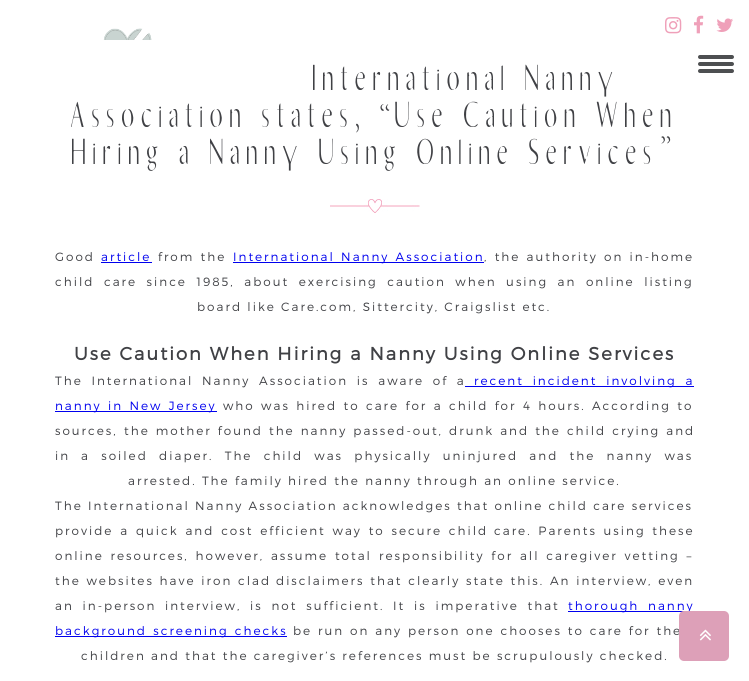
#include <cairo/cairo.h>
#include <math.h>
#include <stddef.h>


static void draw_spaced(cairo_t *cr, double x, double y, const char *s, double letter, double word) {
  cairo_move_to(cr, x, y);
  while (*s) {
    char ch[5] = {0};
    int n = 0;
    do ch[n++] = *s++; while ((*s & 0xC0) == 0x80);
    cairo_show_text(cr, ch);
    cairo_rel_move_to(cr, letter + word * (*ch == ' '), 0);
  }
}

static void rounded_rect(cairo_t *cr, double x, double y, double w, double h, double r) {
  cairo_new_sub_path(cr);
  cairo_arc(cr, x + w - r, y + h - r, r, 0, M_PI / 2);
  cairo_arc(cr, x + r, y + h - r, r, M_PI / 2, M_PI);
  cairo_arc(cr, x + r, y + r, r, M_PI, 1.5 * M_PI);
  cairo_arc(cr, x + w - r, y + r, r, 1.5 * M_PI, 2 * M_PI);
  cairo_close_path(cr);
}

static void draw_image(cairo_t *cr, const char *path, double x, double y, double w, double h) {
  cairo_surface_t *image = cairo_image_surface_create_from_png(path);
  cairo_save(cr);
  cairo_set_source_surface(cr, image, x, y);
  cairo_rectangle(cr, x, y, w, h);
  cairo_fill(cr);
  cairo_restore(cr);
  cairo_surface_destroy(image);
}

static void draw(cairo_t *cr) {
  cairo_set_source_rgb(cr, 1, 1, 1);
  cairo_paint(cr);
  draw_image(cr, "images/1.png", 103, 28, 49, 12);
  draw_image(cr, "images/2.png", 665, 17, 17, 17);
  draw_image(cr, "images/3.png", 694, 15, 10, 19);
  draw_image(cr, "images/4.png", 716, 18, 17, 14);
  cairo_set_source_rgb(cr, 77 / 255.0, 79 / 255.0, 81 / 255.0);
  rounded_rect(cr, 698, 62, 36, 4, 2);
  cairo_fill(cr);
  rounded_rect(cr, 698, 55, 36, 4, 2);
  cairo_fill(cr);
  rounded_rect(cr, 698, 69, 36, 4, 2);
  cairo_fill(cr);
  draw_image(cr, "images/5.png", 330, 199, 90, 14);
  cairo_set_source_rgb(cr, 0, 0, 238 / 255.0);
  cairo_rectangle(cr, 101, 262, 51, 1);
  cairo_fill(cr);
  cairo_rectangle(cr, 233, 262, 251, 1);
  cairo_fill(cr);
  cairo_rectangle(cr, 465, 386, 229, 1);
  cairo_fill(cr);
  cairo_rectangle(cr, 55, 411, 162, 1);
  cairo_fill(cr);
  cairo_rectangle(cr, 568, 611, 116, 1);
  cairo_fill(cr);
  cairo_rectangle(cr, 55, 636, 232, 1);
  cairo_fill(cr);
  cairo_select_font_face(cr, "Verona", CAIRO_FONT_SLANT_NORMAL, CAIRO_FONT_WEIGHT_NORMAL);
  cairo_set_font_size(cr, 36);
  cairo_set_source_rgb(cr, 64 / 255.0, 65 / 255.0, 69 / 255.0);
  draw_spaced(cr, 313, 90, "International Nanny", 5, 0);
  draw_spaced(cr, 71, 127, "Association states, “Use Caution When", 5, 0);
  draw_spaced(cr, 72, 164, "Hiring a Nanny Using Online Services”", 5, 0);
  cairo_select_font_face(cr, "Montserrat Light", CAIRO_FONT_SLANT_NORMAL, CAIRO_FONT_WEIGHT_NORMAL);
  cairo_set_font_size(cr, 12);
  draw_spaced(cr, 55, 261, "Good", 2, 0);
  cairo_set_source_rgb(cr, 0, 0, 238 / 255.0);
  draw_spaced(cr, 101, 261, "article", 2, 0);
  cairo_set_source_rgb(cr, 64 / 255.0, 65 / 255.0, 69 / 255.0);
  draw_spaced(cr, 158, 261, "from the", 2, 1);
  cairo_set_source_rgb(cr, 0, 0, 238 / 255.0);
  draw_spaced(cr, 233, 261, "International Nanny Association", 2, 1);
  cairo_set_source_rgb(cr, 64 / 255.0, 65 / 255.0, 69 / 255.0);
  draw_spaced(cr, 484, 261, ", the authority on in-home", 2, 1);
  draw_spaced(cr, 55, 286, "child care since 1985, about exercising caution when using an online listing", 2, 4.25);
  draw_spaced(cr, 197, 311, "board like Care.com, Sittercity, Craigslist etc.", 2, 0);
  cairo_select_font_face(cr, "Montserrat", CAIRO_FONT_SLANT_NORMAL, CAIRO_FONT_WEIGHT_BOLD);
  cairo_set_font_size(cr, 18);
  draw_spaced(cr, 74, 360, "Use Caution When Hiring a Nanny Using Online Services", 2, 0);
  cairo_select_font_face(cr, "Montserrat Light", CAIRO_FONT_SLANT_NORMAL, CAIRO_FONT_WEIGHT_NORMAL);
  cairo_set_font_size(cr, 12);
  draw_spaced(cr, 55, 385, "The International Nanny Association is aware of a", 2, 3.5);
  cairo_set_source_rgb(cr, 0, 0, 238 / 255.0);
  draw_spaced(cr, 474, 385, "recent incident involving a", 2, 3.5);
  draw_spaced(cr, 55, 410, "nanny in New Jersey", 2, 1.1);
  cairo_set_source_rgb(cr, 64 / 255.0, 65 / 255.0, 69 / 255.0);
  draw_spaced(cr, 223, 410, "who was hired to care for a child for 4 hours. According to", 2, 1.1);
  draw_spaced(cr, 55, 435, "sources,", 2, 0);
  draw_spaced(cr, 124, 435, "the mother found the nanny passed-out, drunk and the child crying and", 2, 0.75);
  draw_spaced(cr, 55, 460, "in", 2, 0);
  draw_spaced(cr, 81, 460, "a soiled diaper. The child was physically uninjured and the nanny was", 2, 6);
  draw_spaced(cr, 128, 485, "arrested. The family hired the nanny through an online service.", 2, 0);
  draw_spaced(cr, 55, 510, "The International Nanny Association acknowledges that online child care services", 2, 0);
  draw_spaced(cr, 55, 535, "provide a quick and cost efficient way to secure child", 2, 1.5);
  draw_spaced(cr, 494, 535, "care. Parents using these", 2, 1.5);
  draw_spaced(cr, 55, 560, "online resources, however, assume total", 2, 1.5);
  draw_spaced(cr, 379, 560, "responsibility for all caregiver vetting –", 2, 1.5);
  draw_spaced(cr, 55, 585, "the websites have iron clad", 2, 0.5);
  draw_spaced(cr, 276, 585, "disclaimers that clearly state this. An interview, even", 2, 0.5);
  draw_spaced(cr, 55, 610, "an in-person", 2, 3.5);
  draw_spaced(cr, 165, 610, "interview, is not sufficient. It is imperative that", 2, 3.5);
  cairo_set_source_rgb(cr, 0, 0, 238 / 255.0);
  draw_spaced(cr, 568, 610, "thorough nanny", 2, 3.5);
  draw_spaced(cr, 55, 635, "background screening checks", 2, 1);
  cairo_set_source_rgb(cr, 64 / 255.0, 65 / 255.0, 69 / 255.0);
  draw_spaced(cr, 293, 635, "be run on any person one chooses to care for the", 2, 0.6);
  draw_spaced(cr, 81, 660, "children and that the caregiver’s references must be scrupulously checked.", 2, 0);
  cairo_set_source_rgb(cr, 221 / 255.0, 160 / 255.0, 184 / 255.0);
  rounded_rect(cr, 679, 611, 50, 50, 5);
  cairo_fill(cr);
  draw_image(cr, "images/6.png", 699, 629, 12, 12);
}

int main(void) {
  cairo_surface_t *surface = cairo_image_surface_create(CAIRO_FORMAT_RGB24, 749, 681);
  cairo_t *cr = cairo_create(surface);
  cairo_font_options_t *options = cairo_font_options_create();
  cairo_font_options_set_hint_metrics(options, CAIRO_HINT_METRICS_OFF);
  cairo_font_options_set_hint_style(options, CAIRO_HINT_STYLE_NONE);
  cairo_set_font_options(cr, options);
  cairo_set_miter_limit(cr, 4);
  draw(cr);
  cairo_surface_write_to_png(surface, "out.png");
  cairo_font_options_destroy(options);
  cairo_destroy(cr);
  cairo_surface_destroy(surface);
  return 0;
}
